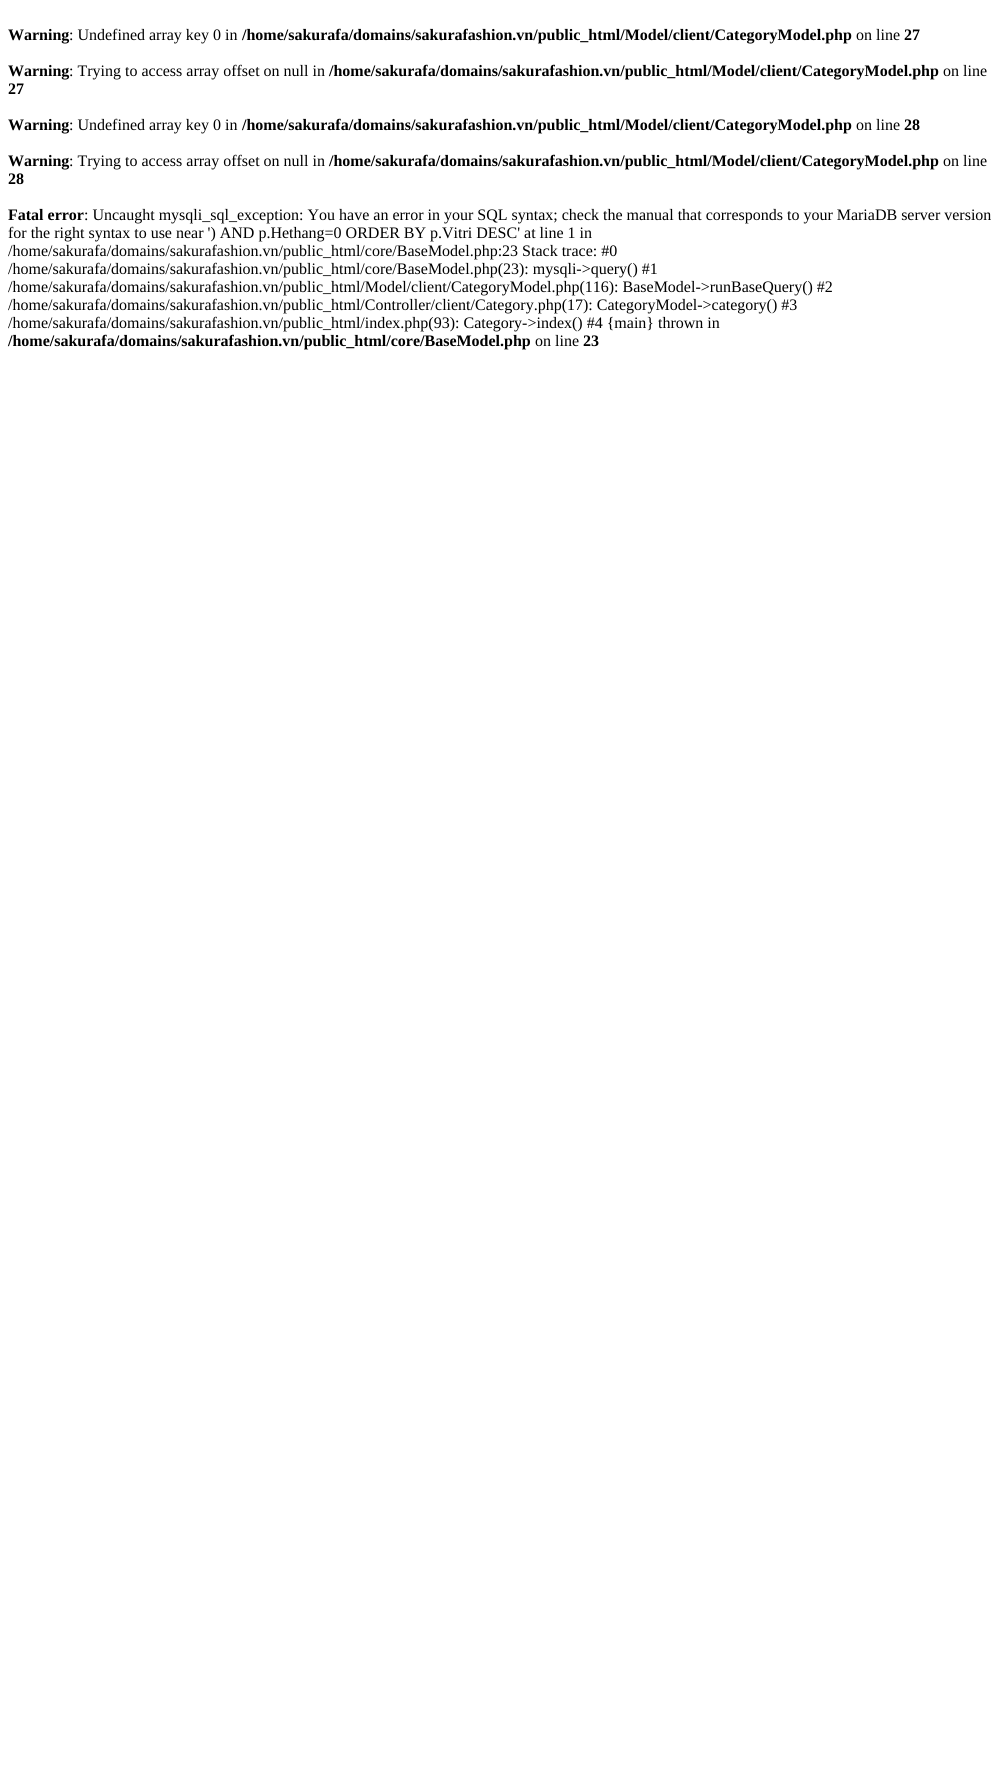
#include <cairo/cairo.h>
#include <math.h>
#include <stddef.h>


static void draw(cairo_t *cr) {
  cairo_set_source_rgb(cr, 1, 1, 1);
  cairo_paint(cr);
  cairo_select_font_face(cr, "Liberation Serif", CAIRO_FONT_SLANT_NORMAL, CAIRO_FONT_WEIGHT_BOLD);
  cairo_set_font_size(cr, 16);
  cairo_set_source_rgb(cr, 0, 0, 0);
  cairo_move_to(cr, 8, 40);
  cairo_show_text(cr, "Warning");
  cairo_select_font_face(cr, "Liberation Serif", CAIRO_FONT_SLANT_NORMAL, CAIRO_FONT_WEIGHT_NORMAL);
  cairo_move_to(cr, 69, 40);
  cairo_show_text(cr, ": Undefined array key 0 in");
  cairo_select_font_face(cr, "Liberation Serif", CAIRO_FONT_SLANT_NORMAL, CAIRO_FONT_WEIGHT_BOLD);
  cairo_move_to(cr, 242, 40);
  cairo_show_text(cr, "/home/sakurafa/domains/sakurafashion.vn/public_html/Model/client/CategoryModel.php");
  cairo_select_font_face(cr, "Liberation Serif", CAIRO_FONT_SLANT_NORMAL, CAIRO_FONT_WEIGHT_NORMAL);
  cairo_move_to(cr, 856, 40);
  cairo_show_text(cr, "on line");
  cairo_select_font_face(cr, "Liberation Serif", CAIRO_FONT_SLANT_NORMAL, CAIRO_FONT_WEIGHT_BOLD);
  cairo_move_to(cr, 904, 40);
  cairo_show_text(cr, "27");
  cairo_move_to(cr, 8, 76);
  cairo_show_text(cr, "Warning");
  cairo_select_font_face(cr, "Liberation Serif", CAIRO_FONT_SLANT_NORMAL, CAIRO_FONT_WEIGHT_NORMAL);
  cairo_move_to(cr, 69, 76);
  cairo_show_text(cr, ": Trying to access array offset on null in");
  cairo_select_font_face(cr, "Liberation Serif", CAIRO_FONT_SLANT_NORMAL, CAIRO_FONT_WEIGHT_BOLD);
  cairo_move_to(cr, 329, 76);
  cairo_show_text(cr, "/home/sakurafa/domains/sakurafashion.vn/public_html/Model/client/CategoryModel.php");
  cairo_select_font_face(cr, "Liberation Serif", CAIRO_FONT_SLANT_NORMAL, CAIRO_FONT_WEIGHT_NORMAL);
  cairo_move_to(cr, 943, 76);
  cairo_show_text(cr, "on line");
  cairo_select_font_face(cr, "Liberation Serif", CAIRO_FONT_SLANT_NORMAL, CAIRO_FONT_WEIGHT_BOLD);
  cairo_move_to(cr, 8, 94);
  cairo_show_text(cr, "27");
  cairo_move_to(cr, 8, 130);
  cairo_show_text(cr, "Warning");
  cairo_select_font_face(cr, "Liberation Serif", CAIRO_FONT_SLANT_NORMAL, CAIRO_FONT_WEIGHT_NORMAL);
  cairo_move_to(cr, 69, 130);
  cairo_show_text(cr, ": Undefined array key 0 in");
  cairo_select_font_face(cr, "Liberation Serif", CAIRO_FONT_SLANT_NORMAL, CAIRO_FONT_WEIGHT_BOLD);
  cairo_move_to(cr, 242, 130);
  cairo_show_text(cr, "/home/sakurafa/domains/sakurafashion.vn/public_html/Model/client/CategoryModel.php");
  cairo_select_font_face(cr, "Liberation Serif", CAIRO_FONT_SLANT_NORMAL, CAIRO_FONT_WEIGHT_NORMAL);
  cairo_move_to(cr, 856, 130);
  cairo_show_text(cr, "on line");
  cairo_select_font_face(cr, "Liberation Serif", CAIRO_FONT_SLANT_NORMAL, CAIRO_FONT_WEIGHT_BOLD);
  cairo_move_to(cr, 904, 130);
  cairo_show_text(cr, "28");
  cairo_move_to(cr, 8, 166);
  cairo_show_text(cr, "Warning");
  cairo_select_font_face(cr, "Liberation Serif", CAIRO_FONT_SLANT_NORMAL, CAIRO_FONT_WEIGHT_NORMAL);
  cairo_move_to(cr, 69, 166);
  cairo_show_text(cr, ": Trying to access array offset on null in");
  cairo_select_font_face(cr, "Liberation Serif", CAIRO_FONT_SLANT_NORMAL, CAIRO_FONT_WEIGHT_BOLD);
  cairo_move_to(cr, 329, 166);
  cairo_show_text(cr, "/home/sakurafa/domains/sakurafashion.vn/public_html/Model/client/CategoryModel.php");
  cairo_select_font_face(cr, "Liberation Serif", CAIRO_FONT_SLANT_NORMAL, CAIRO_FONT_WEIGHT_NORMAL);
  cairo_move_to(cr, 943, 166);
  cairo_show_text(cr, "on line");
  cairo_select_font_face(cr, "Liberation Serif", CAIRO_FONT_SLANT_NORMAL, CAIRO_FONT_WEIGHT_BOLD);
  cairo_move_to(cr, 8, 184);
  cairo_show_text(cr, "28");
  cairo_move_to(cr, 8, 220);
  cairo_show_text(cr, "Fatal error");
  cairo_select_font_face(cr, "Liberation Serif", CAIRO_FONT_SLANT_NORMAL, CAIRO_FONT_WEIGHT_NORMAL);
  cairo_move_to(cr, 84, 220);
  cairo_show_text(cr, ": Uncaught mysqli_sql_exception: You have an error in your SQL syntax; check the manual that corresponds to your MariaDB server version");
  cairo_move_to(cr, 8, 238);
  cairo_show_text(cr, "for the right syntax to use near ') AND p.Hethang=0 ORDER BY p.Vitri DESC' at line 1 in");
  cairo_move_to(cr, 8, 256);
  cairo_show_text(cr, "/home/sakurafa/domains/sakurafashion.vn/public_html/core/BaseModel.php:23 Stack trace: #0");
  cairo_move_to(cr, 8, 274);
  cairo_show_text(cr, "/home/sakurafa/domains/sakurafashion.vn/public_html/core/BaseModel.php(23): mysqli->query() #1");
  cairo_move_to(cr, 8, 292);
  cairo_show_text(cr, "/home/sakurafa/domains/sakurafashion.vn/public_html/Model/client/CategoryModel.php(116): BaseModel->runBaseQuery() #2");
  cairo_move_to(cr, 8, 310);
  cairo_show_text(cr, "/home/sakurafa/domains/sakurafashion.vn/public_html/Controller/client/Category.php(17): CategoryModel->category() #3");
  cairo_move_to(cr, 8, 328);
  cairo_show_text(cr, "/home/sakurafa/domains/sakurafashion.vn/public_html/index.php(93): Category->index() #4 {main} thrown in");
  cairo_select_font_face(cr, "Liberation Serif", CAIRO_FONT_SLANT_NORMAL, CAIRO_FONT_WEIGHT_BOLD);
  cairo_move_to(cr, 8, 346);
  cairo_show_text(cr, "/home/sakurafa/domains/sakurafashion.vn/public_html/core/BaseModel.php");
  cairo_select_font_face(cr, "Liberation Serif", CAIRO_FONT_SLANT_NORMAL, CAIRO_FONT_WEIGHT_NORMAL);
  cairo_move_to(cr, 535, 346);
  cairo_show_text(cr, "on line");
  cairo_select_font_face(cr, "Liberation Serif", CAIRO_FONT_SLANT_NORMAL, CAIRO_FONT_WEIGHT_BOLD);
  cairo_move_to(cr, 583, 346);
  cairo_show_text(cr, "23");
}

int main(void) {
  cairo_surface_t *surface = cairo_image_surface_create(CAIRO_FORMAT_RGB24, 1001, 1770);
  cairo_t *cr = cairo_create(surface);
  cairo_font_options_t *options = cairo_font_options_create();
  cairo_font_options_set_hint_metrics(options, CAIRO_HINT_METRICS_OFF);
  cairo_font_options_set_hint_style(options, CAIRO_HINT_STYLE_NONE);
  cairo_set_font_options(cr, options);
  cairo_set_miter_limit(cr, 4);
  draw(cr);
  cairo_surface_write_to_png(surface, "out.png");
  cairo_font_options_destroy(options);
  cairo_destroy(cr);
  cairo_surface_destroy(surface);
  return 0;
}
